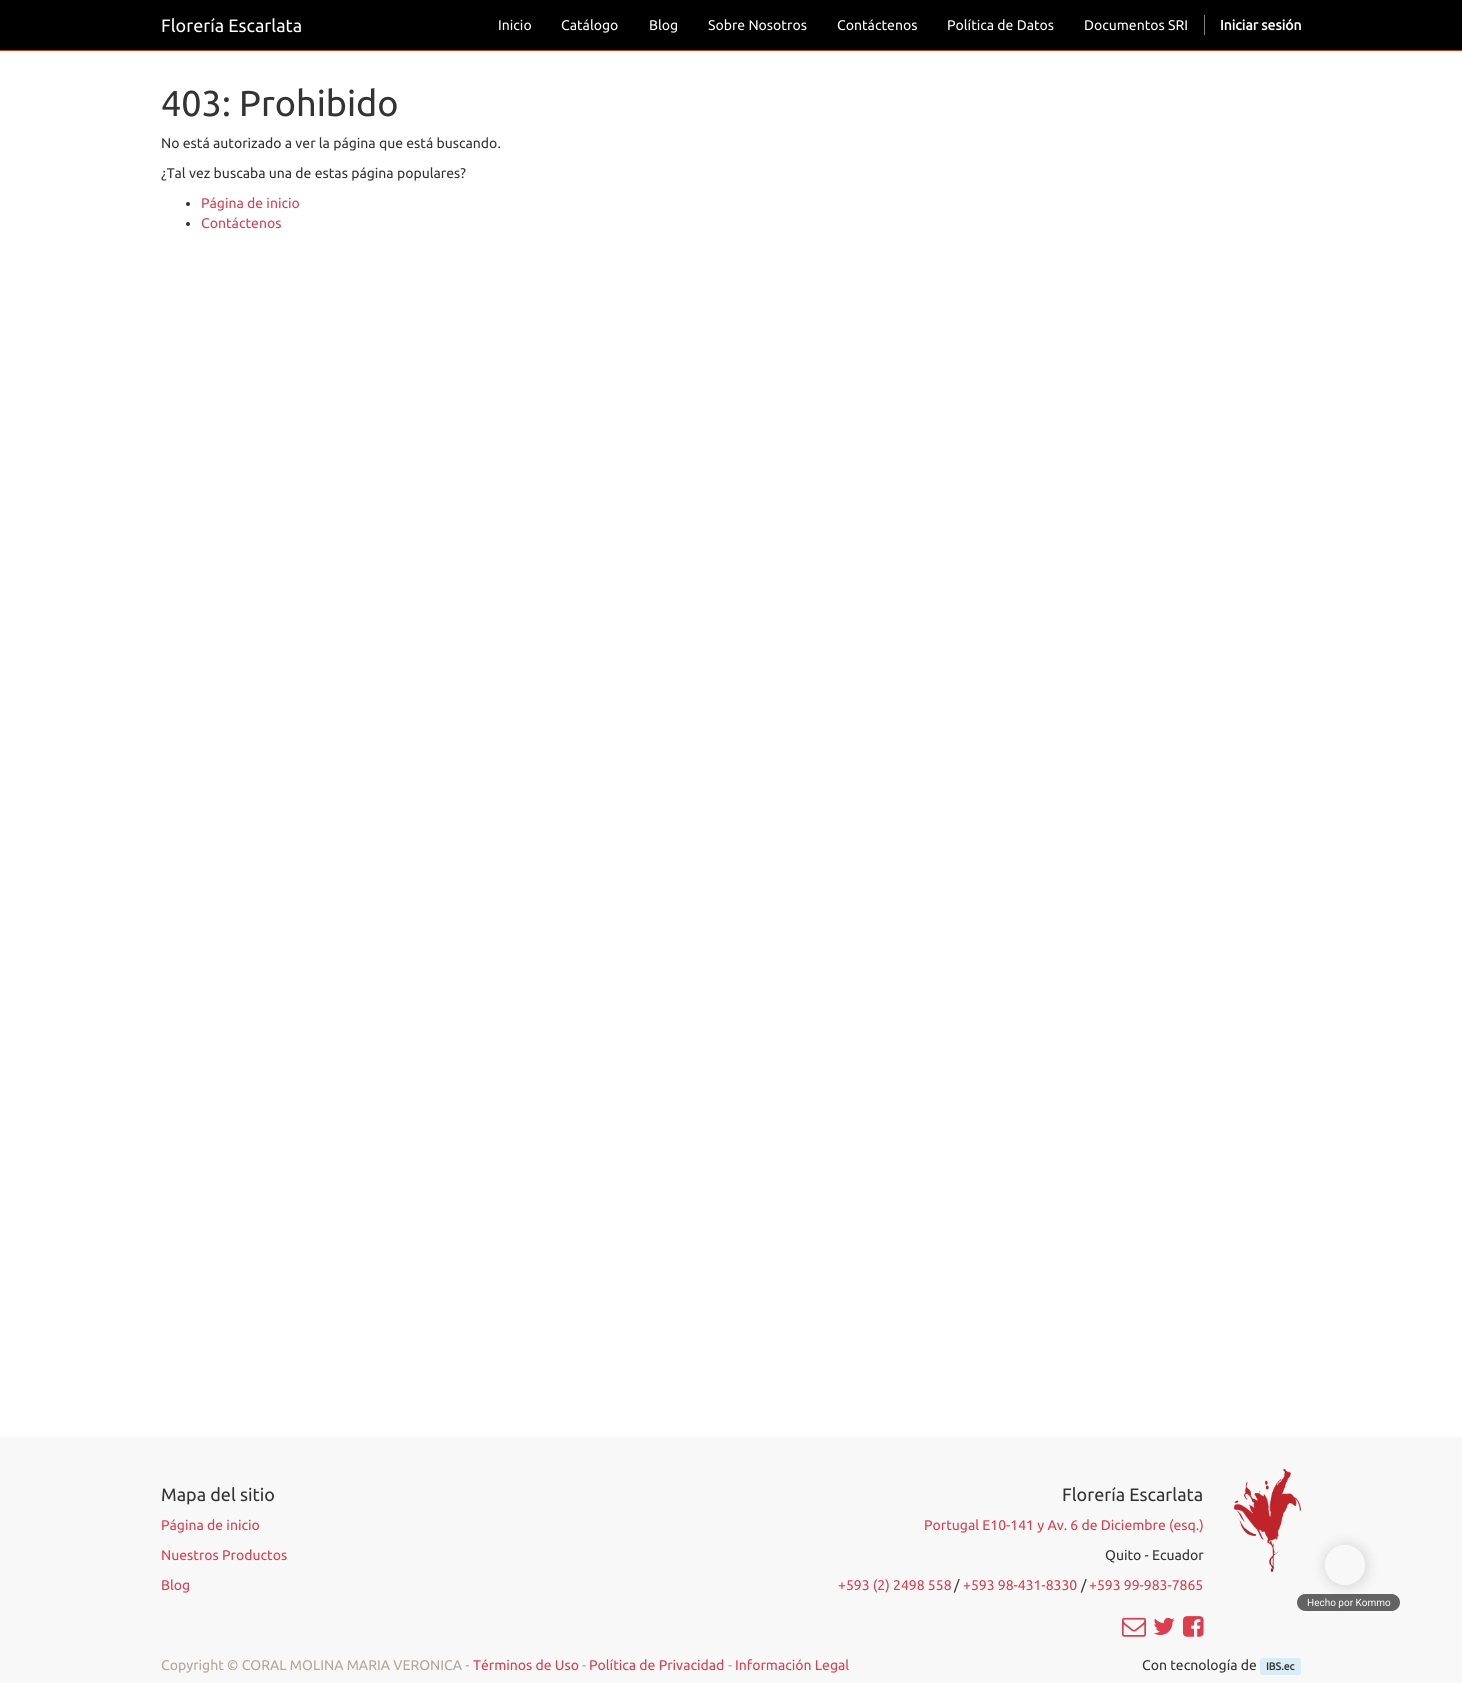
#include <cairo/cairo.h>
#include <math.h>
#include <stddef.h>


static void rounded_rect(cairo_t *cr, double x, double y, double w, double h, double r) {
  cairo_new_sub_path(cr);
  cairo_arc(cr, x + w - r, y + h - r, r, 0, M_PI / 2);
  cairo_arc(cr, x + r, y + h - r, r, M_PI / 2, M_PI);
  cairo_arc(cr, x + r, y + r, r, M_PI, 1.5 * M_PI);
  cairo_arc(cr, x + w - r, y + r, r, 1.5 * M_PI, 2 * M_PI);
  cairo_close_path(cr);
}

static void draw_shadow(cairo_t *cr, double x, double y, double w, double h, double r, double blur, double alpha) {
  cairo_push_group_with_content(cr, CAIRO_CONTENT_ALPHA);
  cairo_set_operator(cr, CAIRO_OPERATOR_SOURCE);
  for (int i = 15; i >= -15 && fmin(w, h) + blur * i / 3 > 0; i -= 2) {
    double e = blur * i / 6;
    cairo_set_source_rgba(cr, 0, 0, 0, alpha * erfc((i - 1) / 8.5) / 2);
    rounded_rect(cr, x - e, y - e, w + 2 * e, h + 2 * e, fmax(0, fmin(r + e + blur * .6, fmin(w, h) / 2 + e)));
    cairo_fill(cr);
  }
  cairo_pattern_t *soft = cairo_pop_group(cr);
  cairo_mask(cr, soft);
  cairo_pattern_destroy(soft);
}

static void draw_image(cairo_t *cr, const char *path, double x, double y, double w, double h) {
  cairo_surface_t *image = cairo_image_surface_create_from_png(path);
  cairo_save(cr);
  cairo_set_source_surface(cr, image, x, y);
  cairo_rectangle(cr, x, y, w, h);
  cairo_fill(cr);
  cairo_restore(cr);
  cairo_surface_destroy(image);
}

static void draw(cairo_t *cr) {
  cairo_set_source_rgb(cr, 1, 1, 1);
  cairo_paint(cr);
  cairo_set_source_rgb(cr, 0, 0, 0);
  cairo_rectangle(cr, 0, 0, 1462, 50);
  cairo_fill(cr);
  cairo_set_source_rgb(cr, 191 / 255.0, 62 / 255.0, 17 / 255.0);
  cairo_rectangle(cr, 0, 50, 1462, 1);
  cairo_fill(cr);
  cairo_set_source_rgb(cr, 128 / 255.0, 128 / 255.0, 128 / 255.0);
  cairo_rectangle(cr, 1204, 15, 1, 20);
  cairo_fill(cr);
  cairo_set_source_rgb(cr, 51 / 255.0, 51 / 255.0, 51 / 255.0);
  cairo_arc(cr, 188, 204, 2, 0, 2 * M_PI);
  cairo_fill(cr);
  cairo_arc(cr, 188, 224, 2, 0, 2 * M_PI);
  cairo_fill(cr);
  cairo_set_source_rgb(cr, 248 / 255.0, 248 / 255.0, 248 / 255.0);
  cairo_rectangle(cr, 0, 1437, 1462, 246);
  cairo_fill(cr);
  draw_image(cr, "images/1.png", 1122, 1617, 24, 20);
  draw_image(cr, "images/2.png", 1153, 1617, 22, 18);
  draw_image(cr, "images/3.png", 1183, 1616, 21, 21);
  draw_image(cr, "images/4.png", 1234, 1469, 67, 103);
  cairo_set_source_rgb(cr, 217 / 255.0, 237 / 255.0, 247 / 255.0);
  rounded_rect(cr, 1260, 1658, 41, 17, 2.5);
  cairo_fill(cr);
  cairo_set_source_rgb(cr, 99 / 255.0, 99 / 255.0, 99 / 255.0);
  rounded_rect(cr, 1297, 1594, 103, 17, 8.5);
  cairo_fill(cr);
  cairo_save(cr);
  cairo_set_fill_rule(cr, CAIRO_FILL_RULE_EVEN_ODD);
  cairo_new_path(cr);
  cairo_move_to(cr, 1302, 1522);
  cairo_line_to(cr, 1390, 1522);
  cairo_line_to(cr, 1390, 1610);
  cairo_line_to(cr, 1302, 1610);
  cairo_close_path(cr);
  cairo_move_to(cr, 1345, 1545);
  cairo_curve_to(cr, 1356, 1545, 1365, 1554, 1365, 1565);
  cairo_curve_to(cr, 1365, 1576, 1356, 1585, 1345, 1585);
  cairo_curve_to(cr, 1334, 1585, 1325, 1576, 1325, 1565);
  cairo_curve_to(cr, 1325, 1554, 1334, 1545, 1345, 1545);
  cairo_close_path(cr);
  cairo_clip(cr);
  cairo_set_source_rgb(cr, 0, 0, 0);
  draw_shadow(cr, 1326, 1546, 40, 40, 20, 7.5, 0.15);
  cairo_restore(cr);
  cairo_select_font_face(cr, "Ubuntu", CAIRO_FONT_SLANT_NORMAL, CAIRO_FONT_WEIGHT_NORMAL);
  cairo_set_font_size(cr, 18);
  cairo_set_source_rgb(cr, 1, 1, 1);
  cairo_move_to(cr, 161, 32);
  cairo_show_text(cr, "Florería Escarlata");
  cairo_set_font_size(cr, 14);
  cairo_move_to(cr, 498, 30);
  cairo_show_text(cr, "Inicio");
  cairo_move_to(cr, 561, 30);
  cairo_show_text(cr, "Catálogo");
  cairo_move_to(cr, 649, 30);
  cairo_show_text(cr, "Blog");
  cairo_move_to(cr, 708, 30);
  cairo_show_text(cr, "Sobre Nosotros");
  cairo_move_to(cr, 837, 30);
  cairo_show_text(cr, "Contáctenos");
  cairo_move_to(cr, 947, 30);
  cairo_show_text(cr, "Política de Datos");
  cairo_move_to(cr, 1084, 30);
  cairo_show_text(cr, "Documentos SRI");
  cairo_select_font_face(cr, "Ubuntu", CAIRO_FONT_SLANT_NORMAL, CAIRO_FONT_WEIGHT_BOLD);
  cairo_move_to(cr, 1220, 30);
  cairo_show_text(cr, "Iniciar sesión");
  cairo_select_font_face(cr, "Ubuntu", CAIRO_FONT_SLANT_NORMAL, CAIRO_FONT_WEIGHT_NORMAL);
  cairo_set_font_size(cr, 36);
  cairo_set_source_rgb(cr, 51 / 255.0, 51 / 255.0, 51 / 255.0);
  cairo_move_to(cr, 161, 116);
  cairo_show_text(cr, "403: Prohibido");
  cairo_set_font_size(cr, 14);
  cairo_move_to(cr, 161, 148);
  cairo_show_text(cr, "No está autorizado a ver la página que está buscando.");
  cairo_move_to(cr, 161, 178);
  cairo_show_text(cr, "¿Tal vez buscaba una de estas página populares?");
  cairo_set_source_rgb(cr, 219 / 255.0, 62 / 255.0, 78 / 255.0);
  cairo_move_to(cr, 201, 208);
  cairo_show_text(cr, "Página de inicio");
  cairo_move_to(cr, 201, 228);
  cairo_show_text(cr, "Contáctenos");
  cairo_set_font_size(cr, 18);
  cairo_set_source_rgb(cr, 51 / 255.0, 51 / 255.0, 51 / 255.0);
  cairo_move_to(cr, 161, 1501);
  cairo_show_text(cr, "Mapa del sitio");
  cairo_set_font_size(cr, 14);
  cairo_set_source_rgb(cr, 219 / 255.0, 62 / 255.0, 78 / 255.0);
  cairo_move_to(cr, 161, 1530);
  cairo_show_text(cr, "Página de inicio");
  cairo_move_to(cr, 161, 1560);
  cairo_show_text(cr, "Nuestros Productos");
  cairo_move_to(cr, 161, 1590);
  cairo_show_text(cr, "Blog");
  cairo_set_font_size(cr, 18);
  cairo_set_source_rgb(cr, 51 / 255.0, 51 / 255.0, 51 / 255.0);
  cairo_move_to(cr, 1062, 1501);
  cairo_show_text(cr, "Florería Escarlata");
  cairo_set_font_size(cr, 14);
  cairo_set_source_rgb(cr, 219 / 255.0, 62 / 255.0, 78 / 255.0);
  cairo_move_to(cr, 924, 1530);
  cairo_show_text(cr, "Portugal E10-141 y Av. 6 de Diciembre (esq.)");
  cairo_set_source_rgb(cr, 51 / 255.0, 51 / 255.0, 51 / 255.0);
  cairo_move_to(cr, 1105, 1560);
  cairo_show_text(cr, "Quito - Ecuador");
  cairo_set_source_rgb(cr, 219 / 255.0, 62 / 255.0, 78 / 255.0);
  cairo_move_to(cr, 838, 1590);
  cairo_show_text(cr, "+593 (2) 2498 558");
  cairo_set_source_rgb(cr, 51 / 255.0, 51 / 255.0, 51 / 255.0);
  cairo_move_to(cr, 954, 1590);
  cairo_show_text(cr, "/");
  cairo_set_source_rgb(cr, 219 / 255.0, 62 / 255.0, 78 / 255.0);
  cairo_move_to(cr, 963, 1590);
  cairo_show_text(cr, "+593 98-431-8330");
  cairo_set_source_rgb(cr, 51 / 255.0, 51 / 255.0, 51 / 255.0);
  cairo_move_to(cr, 1081, 1590);
  cairo_show_text(cr, "/");
  cairo_set_source_rgb(cr, 219 / 255.0, 62 / 255.0, 78 / 255.0);
  cairo_move_to(cr, 1089, 1590);
  cairo_show_text(cr, "+593 99-983-7865");
  cairo_set_source_rgb(cr, 174 / 255.0, 167 / 255.0, 159 / 255.0);
  cairo_move_to(cr, 161, 1670);
  cairo_show_text(cr, "Copyright © CORAL MOLINA MARIA VERONICA -");
  cairo_set_source_rgb(cr, 219 / 255.0, 62 / 255.0, 78 / 255.0);
  cairo_move_to(cr, 473, 1670);
  cairo_show_text(cr, "Términos de Uso");
  cairo_set_source_rgb(cr, 174 / 255.0, 167 / 255.0, 159 / 255.0);
  cairo_move_to(cr, 582, 1670);
  cairo_show_text(cr, "-");
  cairo_set_source_rgb(cr, 219 / 255.0, 62 / 255.0, 78 / 255.0);
  cairo_move_to(cr, 589, 1670);
  cairo_show_text(cr, "Política de Privacidad");
  cairo_set_source_rgb(cr, 174 / 255.0, 167 / 255.0, 159 / 255.0);
  cairo_move_to(cr, 728, 1670);
  cairo_show_text(cr, "-");
  cairo_set_source_rgb(cr, 219 / 255.0, 62 / 255.0, 78 / 255.0);
  cairo_move_to(cr, 735, 1670);
  cairo_show_text(cr, "Información Legal");
  cairo_set_source_rgb(cr, 51 / 255.0, 51 / 255.0, 51 / 255.0);
  cairo_move_to(cr, 1142, 1670);
  cairo_show_text(cr, "Con tecnología de");
  cairo_select_font_face(cr, "Ubuntu", CAIRO_FONT_SLANT_NORMAL, CAIRO_FONT_WEIGHT_BOLD);
  cairo_set_font_size(cr, 10.5);
  cairo_move_to(cr, 1266, 1670);
  cairo_show_text(cr, "IBS.ec");
  cairo_select_font_face(cr, "Roboto", CAIRO_FONT_SLANT_NORMAL, CAIRO_FONT_WEIGHT_NORMAL);
  cairo_set_font_size(cr, 10);
  cairo_set_source_rgb(cr, 1, 1, 1);
  cairo_move_to(cr, 1307, 1606);
  cairo_show_text(cr, "Hecho por Kommo");
}

int main(void) {
  cairo_surface_t *surface = cairo_image_surface_create(CAIRO_FORMAT_RGB24, 1462, 1683);
  cairo_t *cr = cairo_create(surface);
  cairo_font_options_t *options = cairo_font_options_create();
  cairo_font_options_set_hint_metrics(options, CAIRO_HINT_METRICS_OFF);
  cairo_font_options_set_hint_style(options, CAIRO_HINT_STYLE_NONE);
  cairo_set_font_options(cr, options);
  cairo_set_miter_limit(cr, 4);
  draw(cr);
  cairo_surface_write_to_png(surface, "out.png");
  cairo_font_options_destroy(options);
  cairo_destroy(cr);
  cairo_surface_destroy(surface);
  return 0;
}
